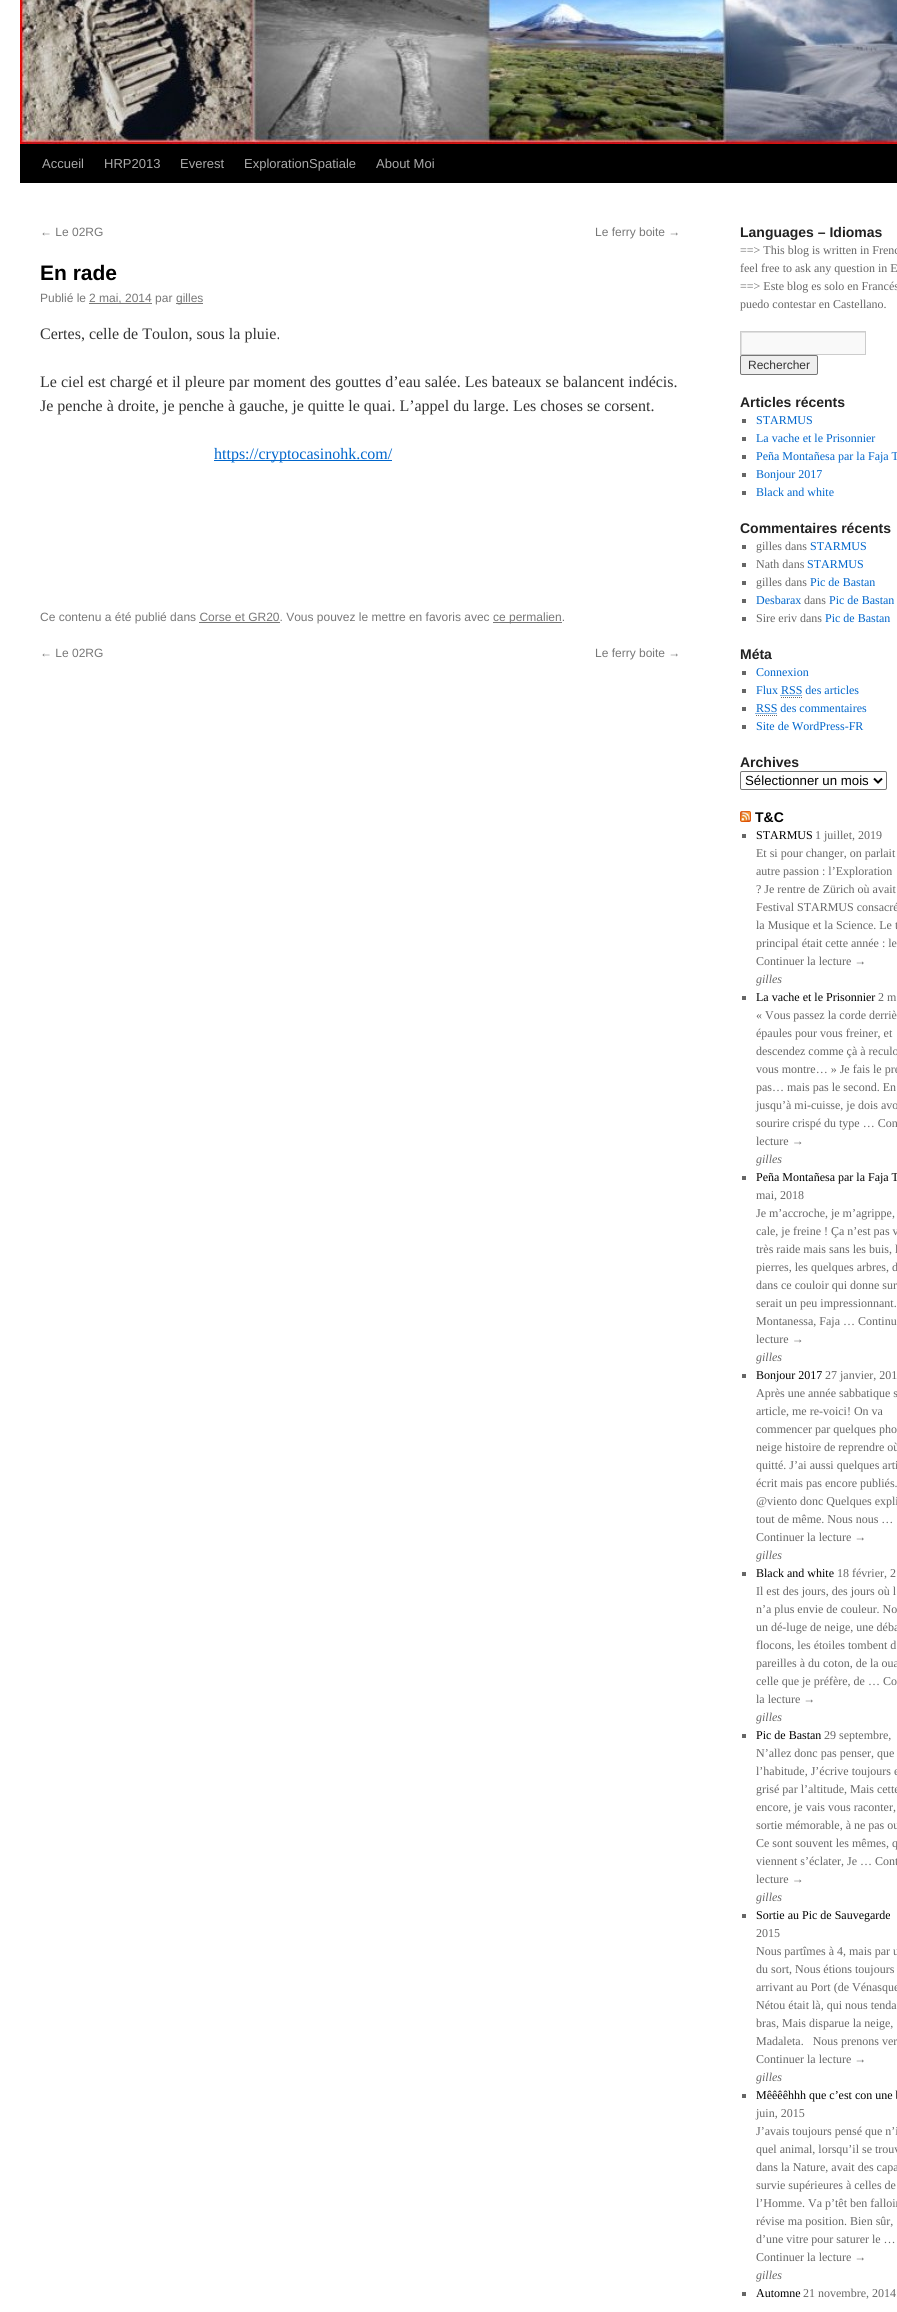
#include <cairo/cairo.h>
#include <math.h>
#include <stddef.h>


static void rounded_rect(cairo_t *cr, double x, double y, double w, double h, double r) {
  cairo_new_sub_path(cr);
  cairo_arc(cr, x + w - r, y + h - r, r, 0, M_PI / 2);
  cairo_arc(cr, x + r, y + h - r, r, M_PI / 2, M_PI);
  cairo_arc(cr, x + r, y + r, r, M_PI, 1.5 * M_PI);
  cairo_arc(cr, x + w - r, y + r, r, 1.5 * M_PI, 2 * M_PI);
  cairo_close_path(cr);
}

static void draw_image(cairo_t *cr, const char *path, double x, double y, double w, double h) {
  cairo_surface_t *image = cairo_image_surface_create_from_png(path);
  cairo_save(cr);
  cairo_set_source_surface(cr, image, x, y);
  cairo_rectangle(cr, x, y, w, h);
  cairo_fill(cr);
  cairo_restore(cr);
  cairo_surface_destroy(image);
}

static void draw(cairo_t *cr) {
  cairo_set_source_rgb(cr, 1, 1, 1);
  cairo_paint(cr);
  cairo_set_source_rgb(cr, 0, 0, 0);
  cairo_rectangle(cr, 20, 144, 877, 39);
  cairo_fill(cr);
  draw_image(cr, "images/1.png", 20, 0, 877, 144);
  cairo_set_source_rgb(cr, 119 / 255.0, 119 / 255.0, 119 / 255.0);
  cairo_rectangle(cr, 89, 303, 63, 1);
  cairo_fill(cr);
  cairo_rectangle(cr, 176, 303, 27, 1);
  cairo_fill(cr);
  cairo_set_source_rgb(cr, 0, 102 / 255.0, 204 / 255.0);
  cairo_rectangle(cr, 214, 460, 178, 1);
  cairo_fill(cr);
  cairo_set_source_rgb(cr, 119 / 255.0, 119 / 255.0, 119 / 255.0);
  cairo_rectangle(cr, 493, 622, 69, 1);
  cairo_fill(cr);
  cairo_rectangle(cr, 199, 622, 81, 1);
  cairo_fill(cr);
  cairo_set_source_rgb(cr, 249 / 255.0, 249 / 255.0, 249 / 255.0);
  cairo_rectangle(cr, 742, 333, 123, 21);
  cairo_fill(cr);
  cairo_save(cr);
  cairo_rectangle(cr, 741, 332, 124, 22);
  cairo_clip(cr);
  cairo_set_source_rgb(cr, 224 / 255.0, 224 / 255.0, 224 / 255.0);
  cairo_set_fill_rule(cr, CAIRO_FILL_RULE_EVEN_ODD);
  cairo_new_path(cr);
  cairo_move_to(cr, 642, 233);
  cairo_line_to(cr, 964, 233);
  cairo_line_to(cr, 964, 453);
  cairo_line_to(cr, 642, 453);
  cairo_close_path(cr);
  cairo_move_to(cr, 742, 333);
  cairo_line_to(cr, 866, 333);
  cairo_line_to(cr, 866, 355);
  cairo_line_to(cr, 742, 355);
  cairo_close_path(cr);
  cairo_fill(cr);
  cairo_restore(cr);
  cairo_rectangle(cr, 740.5, 331.5, 125, 23);
  cairo_set_source_rgb(cr, 204 / 255.0, 204 / 255.0, 204 / 255.0);
  cairo_set_line_width(cr, 1);
  cairo_stroke(cr);
  cairo_set_source_rgb(cr, 239 / 255.0, 239 / 255.0, 239 / 255.0);
  rounded_rect(cr, 740.5, 355.5, 77, 19, 1.5);
  cairo_fill_preserve(cr);
  cairo_set_source_rgb(cr, 118 / 255.0, 118 / 255.0, 118 / 255.0);
  cairo_stroke(cr);
  cairo_set_source_rgb(cr, 102 / 255.0, 102 / 255.0, 102 / 255.0);
  cairo_rectangle(cr, 742, 419, 4, 4);
  cairo_fill(cr);
  cairo_rectangle(cr, 742, 437, 4, 4);
  cairo_fill(cr);
  cairo_rectangle(cr, 742, 455, 4, 4);
  cairo_fill(cr);
  cairo_rectangle(cr, 742, 473, 4, 4);
  cairo_fill(cr);
  cairo_rectangle(cr, 742, 491, 4, 4);
  cairo_fill(cr);
  cairo_rectangle(cr, 742, 545, 4, 4);
  cairo_fill(cr);
  cairo_rectangle(cr, 742, 563, 4, 4);
  cairo_fill(cr);
  cairo_rectangle(cr, 742, 581, 4, 4);
  cairo_fill(cr);
  cairo_rectangle(cr, 742, 599, 4, 4);
  cairo_fill(cr);
  cairo_rectangle(cr, 742, 617, 4, 4);
  cairo_fill(cr);
  cairo_rectangle(cr, 742, 671, 4, 4);
  cairo_fill(cr);
  cairo_rectangle(cr, 742, 689, 4, 4);
  cairo_fill(cr);
  cairo_new_path(cr);
  cairo_move_to(cr, 781, 697.5);
  cairo_line_to(cr, 802, 697.5);
  cairo_set_dash(cr, (double[]){1, 1}, 2, 0);
  cairo_stroke(cr);
  cairo_new_path(cr);
  cairo_move_to(cr, 780.5, 695.5);
  cairo_line_to(cr, 802, 695.5);
  cairo_set_source_rgb(cr, 0, 102 / 255.0, 204 / 255.0);
  cairo_stroke(cr);
  cairo_set_source_rgb(cr, 102 / 255.0, 102 / 255.0, 102 / 255.0);
  cairo_rectangle(cr, 742, 707, 4, 4);
  cairo_fill(cr);
  cairo_new_path(cr);
  cairo_move_to(cr, 756, 715.5);
  cairo_line_to(cr, 777, 715.5);
  cairo_stroke(cr);
  cairo_new_path(cr);
  cairo_move_to(cr, 755.5, 713.5);
  cairo_line_to(cr, 777, 713.5);
  cairo_set_source_rgb(cr, 0, 102 / 255.0, 204 / 255.0);
  cairo_stroke(cr);
  cairo_set_source_rgb(cr, 102 / 255.0, 102 / 255.0, 102 / 255.0);
  cairo_rectangle(cr, 742, 725, 4, 4);
  cairo_fill(cr);
  rounded_rect(cr, 740.5, 771.5, 146, 18, 1.5);
  cairo_set_source_rgb(cr, 118 / 255.0, 118 / 255.0, 118 / 255.0);
  cairo_set_dash(cr, NULL, 0, 0);
  cairo_stroke(cr);
  cairo_new_path(cr);
  cairo_move_to(cr, 874, 778.5);
  cairo_line_to(cr, 878, 782.5);
  cairo_line_to(cr, 882, 778.5);
  cairo_set_source_rgb(cr, 0, 0, 0);
  cairo_set_line_width(cr, 2);
  cairo_stroke(cr);
  draw_image(cr, "images/2.png", 740, 811, 11, 11);
  cairo_set_source_rgb(cr, 102 / 255.0, 102 / 255.0, 102 / 255.0);
  cairo_rectangle(cr, 742, 834, 4, 4);
  cairo_fill(cr);
  cairo_rectangle(cr, 742, 996, 4, 4);
  cairo_fill(cr);
  cairo_rectangle(cr, 742, 1176, 4, 4);
  cairo_fill(cr);
  cairo_rectangle(cr, 742, 1374, 4, 4);
  cairo_fill(cr);
  cairo_rectangle(cr, 742, 1572, 4, 4);
  cairo_fill(cr);
  cairo_rectangle(cr, 742, 1734, 4, 4);
  cairo_fill(cr);
  cairo_rectangle(cr, 742, 1914, 4, 4);
  cairo_fill(cr);
  cairo_rectangle(cr, 742, 2094, 4, 4);
  cairo_fill(cr);
  cairo_rectangle(cr, 742, 2292, 4, 4);
  cairo_fill(cr);
  cairo_select_font_face(cr, "Liberation Sans", CAIRO_FONT_SLANT_NORMAL, CAIRO_FONT_WEIGHT_NORMAL);
  cairo_set_font_size(cr, 13);
  cairo_set_source_rgb(cr, 170 / 255.0, 170 / 255.0, 170 / 255.0);
  cairo_move_to(cr, 42, 168);
  cairo_show_text(cr, "Accueil");
  cairo_move_to(cr, 104, 168);
  cairo_show_text(cr, "HRP2013");
  cairo_move_to(cr, 180, 168);
  cairo_show_text(cr, "Everest");
  cairo_move_to(cr, 244, 168);
  cairo_show_text(cr, "ExplorationSpatiale");
  cairo_move_to(cr, 376, 168);
  cairo_show_text(cr, "About Moi");
  cairo_set_font_size(cr, 12);
  cairo_set_source_rgb(cr, 119 / 255.0, 119 / 255.0, 119 / 255.0);
  cairo_move_to(cr, 40, 236);
  cairo_show_text(cr, "← Le 02RG");
  cairo_move_to(cr, 595, 236);
  cairo_show_text(cr, "Le ferry boite →");
  cairo_select_font_face(cr, "Liberation Sans", CAIRO_FONT_SLANT_NORMAL, CAIRO_FONT_WEIGHT_BOLD);
  cairo_set_font_size(cr, 21);
  cairo_set_source_rgb(cr, 0, 0, 0);
  cairo_move_to(cr, 40, 280);
  cairo_show_text(cr, "En rade");
  cairo_select_font_face(cr, "Liberation Sans", CAIRO_FONT_SLANT_NORMAL, CAIRO_FONT_WEIGHT_NORMAL);
  cairo_set_font_size(cr, 12);
  cairo_set_source_rgb(cr, 119 / 255.0, 119 / 255.0, 119 / 255.0);
  cairo_move_to(cr, 40, 302);
  cairo_show_text(cr, "Publié le");
  cairo_move_to(cr, 89, 302);
  cairo_show_text(cr, "2 mai, 2014 par");
  cairo_move_to(cr, 176, 302);
  cairo_show_text(cr, "gilles");
  cairo_select_font_face(cr, "Liberation Serif", CAIRO_FONT_SLANT_NORMAL, CAIRO_FONT_WEIGHT_NORMAL);
  cairo_set_font_size(cr, 16);
  cairo_set_source_rgb(cr, 51 / 255.0, 51 / 255.0, 51 / 255.0);
  cairo_move_to(cr, 40, 339);
  cairo_show_text(cr, "Certes, celle de Toulon, sous la pluie.");
  cairo_move_to(cr, 40, 387);
  cairo_show_text(cr, "Le ciel est chargé et il pleure par moment des gouttes d’eau salée. Les bateaux se balancent indécis.");
  cairo_move_to(cr, 40, 411);
  cairo_show_text(cr, "Je penche à droite, je penche à gauche, je quitte le quai. L’appel du large. Les choses se corsent.");
  cairo_set_source_rgb(cr, 0, 102 / 255.0, 204 / 255.0);
  cairo_move_to(cr, 214, 459);
  cairo_show_text(cr, "https://cryptocasinohk.com/");
  cairo_select_font_face(cr, "Liberation Sans", CAIRO_FONT_SLANT_NORMAL, CAIRO_FONT_WEIGHT_NORMAL);
  cairo_set_font_size(cr, 12);
  cairo_set_source_rgb(cr, 119 / 255.0, 119 / 255.0, 119 / 255.0);
  cairo_move_to(cr, 40, 621);
  cairo_show_text(cr, "Ce contenu a été publié dans Corse et GR20. Vous pouvez le mettre en favoris avec");
  cairo_move_to(cr, 493, 621);
  cairo_show_text(cr, "ce permalien.");
  cairo_move_to(cr, 40, 657);
  cairo_show_text(cr, "← Le 02RG");
  cairo_move_to(cr, 595, 657);
  cairo_show_text(cr, "Le ferry boite →");
  cairo_select_font_face(cr, "Liberation Sans", CAIRO_FONT_SLANT_NORMAL, CAIRO_FONT_WEIGHT_BOLD);
  cairo_set_font_size(cr, 14);
  cairo_set_source_rgb(cr, 34 / 255.0, 34 / 255.0, 34 / 255.0);
  cairo_move_to(cr, 740, 237);
  cairo_show_text(cr, "Languages – Idiomas");
  cairo_select_font_face(cr, "Liberation Serif", CAIRO_FONT_SLANT_NORMAL, CAIRO_FONT_WEIGHT_NORMAL);
  cairo_set_font_size(cr, 12);
  cairo_set_source_rgb(cr, 102 / 255.0, 102 / 255.0, 102 / 255.0);
  cairo_move_to(cr, 740, 254);
  cairo_show_text(cr, "==> This blog is written in Frenc");
  cairo_move_to(cr, 740, 272);
  cairo_show_text(cr, "feel free to ask any question in E");
  cairo_move_to(cr, 740, 290);
  cairo_show_text(cr, "==> Este blog es solo en Francés");
  cairo_move_to(cr, 740, 308);
  cairo_show_text(cr, "puedo contestar en Castellano.");
  cairo_select_font_face(cr, "Liberation Sans", CAIRO_FONT_SLANT_NORMAL, CAIRO_FONT_WEIGHT_NORMAL);
  cairo_set_source_rgb(cr, 51 / 255.0, 51 / 255.0, 51 / 255.0);
  cairo_move_to(cr, 748, 369);
  cairo_show_text(cr, "Rechercher");
  cairo_select_font_face(cr, "Liberation Sans", CAIRO_FONT_SLANT_NORMAL, CAIRO_FONT_WEIGHT_BOLD);
  cairo_set_font_size(cr, 14);
  cairo_set_source_rgb(cr, 34 / 255.0, 34 / 255.0, 34 / 255.0);
  cairo_move_to(cr, 740, 407);
  cairo_show_text(cr, "Articles récents");
  cairo_select_font_face(cr, "Liberation Serif", CAIRO_FONT_SLANT_NORMAL, CAIRO_FONT_WEIGHT_NORMAL);
  cairo_set_font_size(cr, 12);
  cairo_set_source_rgb(cr, 0, 102 / 255.0, 204 / 255.0);
  cairo_move_to(cr, 756, 424);
  cairo_show_text(cr, "STARMUS");
  cairo_move_to(cr, 756, 442);
  cairo_show_text(cr, "La vache et le Prisonnier");
  cairo_move_to(cr, 756, 460);
  cairo_show_text(cr, "Peña Montañesa par la Faja T");
  cairo_move_to(cr, 756, 478);
  cairo_show_text(cr, "Bonjour 2017");
  cairo_move_to(cr, 756, 496);
  cairo_show_text(cr, "Black and white");
  cairo_select_font_face(cr, "Liberation Sans", CAIRO_FONT_SLANT_NORMAL, CAIRO_FONT_WEIGHT_BOLD);
  cairo_set_font_size(cr, 14);
  cairo_set_source_rgb(cr, 34 / 255.0, 34 / 255.0, 34 / 255.0);
  cairo_move_to(cr, 740, 533);
  cairo_show_text(cr, "Commentaires récents");
  cairo_select_font_face(cr, "Liberation Serif", CAIRO_FONT_SLANT_NORMAL, CAIRO_FONT_WEIGHT_NORMAL);
  cairo_set_font_size(cr, 12);
  cairo_set_source_rgb(cr, 102 / 255.0, 102 / 255.0, 102 / 255.0);
  cairo_move_to(cr, 756, 550);
  cairo_show_text(cr, "gilles dans");
  cairo_set_source_rgb(cr, 0, 102 / 255.0, 204 / 255.0);
  cairo_move_to(cr, 810, 550);
  cairo_show_text(cr, "STARMUS");
  cairo_set_source_rgb(cr, 102 / 255.0, 102 / 255.0, 102 / 255.0);
  cairo_move_to(cr, 756, 568);
  cairo_show_text(cr, "Nath dans");
  cairo_set_source_rgb(cr, 0, 102 / 255.0, 204 / 255.0);
  cairo_move_to(cr, 807, 568);
  cairo_show_text(cr, "STARMUS");
  cairo_set_source_rgb(cr, 102 / 255.0, 102 / 255.0, 102 / 255.0);
  cairo_move_to(cr, 756, 586);
  cairo_show_text(cr, "gilles dans");
  cairo_set_source_rgb(cr, 0, 102 / 255.0, 204 / 255.0);
  cairo_move_to(cr, 810, 586);
  cairo_show_text(cr, "Pic de Bastan");
  cairo_move_to(cr, 756, 604);
  cairo_show_text(cr, "Desbarax");
  cairo_set_source_rgb(cr, 102 / 255.0, 102 / 255.0, 102 / 255.0);
  cairo_move_to(cr, 804, 604);
  cairo_show_text(cr, "dans");
  cairo_set_source_rgb(cr, 0, 102 / 255.0, 204 / 255.0);
  cairo_move_to(cr, 829, 604);
  cairo_show_text(cr, "Pic de Bastan");
  cairo_set_source_rgb(cr, 102 / 255.0, 102 / 255.0, 102 / 255.0);
  cairo_move_to(cr, 756, 622);
  cairo_show_text(cr, "Sire eriv dans");
  cairo_set_source_rgb(cr, 0, 102 / 255.0, 204 / 255.0);
  cairo_move_to(cr, 825, 622);
  cairo_show_text(cr, "Pic de Bastan");
  cairo_select_font_face(cr, "Liberation Sans", CAIRO_FONT_SLANT_NORMAL, CAIRO_FONT_WEIGHT_BOLD);
  cairo_set_font_size(cr, 14);
  cairo_set_source_rgb(cr, 34 / 255.0, 34 / 255.0, 34 / 255.0);
  cairo_move_to(cr, 740, 659);
  cairo_show_text(cr, "Méta");
  cairo_select_font_face(cr, "Liberation Serif", CAIRO_FONT_SLANT_NORMAL, CAIRO_FONT_WEIGHT_NORMAL);
  cairo_set_font_size(cr, 12);
  cairo_set_source_rgb(cr, 0, 102 / 255.0, 204 / 255.0);
  cairo_move_to(cr, 756, 676);
  cairo_show_text(cr, "Connexion");
  cairo_move_to(cr, 756, 694);
  cairo_show_text(cr, "Flux RSS des articles");
  cairo_move_to(cr, 756, 712);
  cairo_show_text(cr, "RSS des commentaires");
  cairo_move_to(cr, 756, 730);
  cairo_show_text(cr, "Site de WordPress-FR");
  cairo_select_font_face(cr, "Liberation Sans", CAIRO_FONT_SLANT_NORMAL, CAIRO_FONT_WEIGHT_BOLD);
  cairo_set_font_size(cr, 14);
  cairo_set_source_rgb(cr, 34 / 255.0, 34 / 255.0, 34 / 255.0);
  cairo_move_to(cr, 740, 767);
  cairo_show_text(cr, "Archives");
  cairo_select_font_face(cr, "Liberation Sans", CAIRO_FONT_SLANT_NORMAL, CAIRO_FONT_WEIGHT_NORMAL);
  cairo_set_font_size(cr, 13.25);
  cairo_set_source_rgb(cr, 0, 0, 0);
  cairo_move_to(cr, 745, 785);
  cairo_show_text(cr, "Sélectionner un mois");
  cairo_select_font_face(cr, "Liberation Sans", CAIRO_FONT_SLANT_NORMAL, CAIRO_FONT_WEIGHT_BOLD);
  cairo_set_font_size(cr, 14);
  cairo_move_to(cr, 755, 822);
  cairo_show_text(cr, "T&C");
  cairo_select_font_face(cr, "Liberation Serif", CAIRO_FONT_SLANT_NORMAL, CAIRO_FONT_WEIGHT_NORMAL);
  cairo_set_font_size(cr, 12);
  cairo_move_to(cr, 756, 839);
  cairo_show_text(cr, "STARMUS");
  cairo_set_source_rgb(cr, 102 / 255.0, 102 / 255.0, 102 / 255.0);
  cairo_move_to(cr, 815, 839);
  cairo_show_text(cr, "1 juillet, 2019");
  cairo_move_to(cr, 756, 857);
  cairo_show_text(cr, "Et si pour changer, on parlait");
  cairo_move_to(cr, 756, 875);
  cairo_show_text(cr, "autre passion : l’Exploration");
  cairo_move_to(cr, 756, 893);
  cairo_show_text(cr, "? Je rentre de Zürich où avait");
  cairo_move_to(cr, 756, 911);
  cairo_show_text(cr, "Festival STARMUS consacré");
  cairo_move_to(cr, 756, 929);
  cairo_show_text(cr, "la Musique et la Science. Le t");
  cairo_move_to(cr, 756, 947);
  cairo_show_text(cr, "principal était cette année : le");
  cairo_move_to(cr, 756, 965);
  cairo_show_text(cr, "Continuer la lecture →");
  cairo_select_font_face(cr, "Liberation Serif", CAIRO_FONT_SLANT_ITALIC, CAIRO_FONT_WEIGHT_NORMAL);
  cairo_move_to(cr, 756, 983);
  cairo_show_text(cr, "gilles");
  cairo_select_font_face(cr, "Liberation Serif", CAIRO_FONT_SLANT_NORMAL, CAIRO_FONT_WEIGHT_NORMAL);
  cairo_set_source_rgb(cr, 0, 0, 0);
  cairo_move_to(cr, 756, 1001);
  cairo_show_text(cr, "La vache et le Prisonnier");
  cairo_set_source_rgb(cr, 102 / 255.0, 102 / 255.0, 102 / 255.0);
  cairo_move_to(cr, 878, 1001);
  cairo_show_text(cr, "2 m");
  cairo_move_to(cr, 756, 1019);
  cairo_show_text(cr, "« Vous passez la corde derriè");
  cairo_move_to(cr, 756, 1037);
  cairo_show_text(cr, "épaules pour vous freiner, et");
  cairo_move_to(cr, 756, 1055);
  cairo_show_text(cr, "descendez comme çà à reculo");
  cairo_move_to(cr, 756, 1073);
  cairo_show_text(cr, "vous montre… » Je fais le pre");
  cairo_move_to(cr, 756, 1091);
  cairo_show_text(cr, "pas… mais pas le second. En");
  cairo_move_to(cr, 756, 1109);
  cairo_show_text(cr, "jusqu’à mi-cuisse, je dois avo");
  cairo_move_to(cr, 756, 1127);
  cairo_show_text(cr, "sourire crispé du type … Con");
  cairo_move_to(cr, 756, 1145);
  cairo_show_text(cr, "lecture →");
  cairo_select_font_face(cr, "Liberation Serif", CAIRO_FONT_SLANT_ITALIC, CAIRO_FONT_WEIGHT_NORMAL);
  cairo_move_to(cr, 756, 1163);
  cairo_show_text(cr, "gilles");
  cairo_select_font_face(cr, "Liberation Serif", CAIRO_FONT_SLANT_NORMAL, CAIRO_FONT_WEIGHT_NORMAL);
  cairo_set_source_rgb(cr, 0, 0, 0);
  cairo_move_to(cr, 756, 1181);
  cairo_show_text(cr, "Peña Montañesa par la Faja T");
  cairo_set_source_rgb(cr, 102 / 255.0, 102 / 255.0, 102 / 255.0);
  cairo_move_to(cr, 756, 1199);
  cairo_show_text(cr, "mai, 2018");
  cairo_move_to(cr, 756, 1217);
  cairo_show_text(cr, "Je m’accroche, je m’agrippe,");
  cairo_move_to(cr, 756, 1235);
  cairo_show_text(cr, "cale, je freine ! Ça n’est pas v");
  cairo_move_to(cr, 756, 1253);
  cairo_show_text(cr, "très raide mais sans les buis, l");
  cairo_move_to(cr, 756, 1271);
  cairo_show_text(cr, "pierres, les quelques arbres, d");
  cairo_move_to(cr, 756, 1289);
  cairo_show_text(cr, "dans ce couloir qui donne sur");
  cairo_move_to(cr, 756, 1307);
  cairo_show_text(cr, "serait un peu impressionnant.");
  cairo_move_to(cr, 756, 1325);
  cairo_show_text(cr, "Montanessa, Faja … Continu");
  cairo_move_to(cr, 756, 1343);
  cairo_show_text(cr, "lecture →");
  cairo_select_font_face(cr, "Liberation Serif", CAIRO_FONT_SLANT_ITALIC, CAIRO_FONT_WEIGHT_NORMAL);
  cairo_move_to(cr, 756, 1361);
  cairo_show_text(cr, "gilles");
  cairo_select_font_face(cr, "Liberation Serif", CAIRO_FONT_SLANT_NORMAL, CAIRO_FONT_WEIGHT_NORMAL);
  cairo_set_source_rgb(cr, 0, 0, 0);
  cairo_move_to(cr, 756, 1379);
  cairo_show_text(cr, "Bonjour 2017");
  cairo_set_source_rgb(cr, 102 / 255.0, 102 / 255.0, 102 / 255.0);
  cairo_move_to(cr, 825, 1379);
  cairo_show_text(cr, "27 janvier, 201");
  cairo_move_to(cr, 756, 1397);
  cairo_show_text(cr, "Après une année sabbatique s");
  cairo_move_to(cr, 756, 1415);
  cairo_show_text(cr, "article, me re-voici! On va");
  cairo_move_to(cr, 756, 1433);
  cairo_show_text(cr, "commencer par quelques pho");
  cairo_move_to(cr, 756, 1451);
  cairo_show_text(cr, "neige histoire de reprendre où");
  cairo_move_to(cr, 756, 1469);
  cairo_show_text(cr, "quitté. J’ai aussi quelques arti");
  cairo_move_to(cr, 756, 1487);
  cairo_show_text(cr, "écrit mais pas encore publiés.");
  cairo_move_to(cr, 756, 1505);
  cairo_show_text(cr, "@viento donc Quelques expli");
  cairo_move_to(cr, 756, 1523);
  cairo_show_text(cr, "tout de même. Nous nous …");
  cairo_move_to(cr, 756, 1541);
  cairo_show_text(cr, "Continuer la lecture →");
  cairo_select_font_face(cr, "Liberation Serif", CAIRO_FONT_SLANT_ITALIC, CAIRO_FONT_WEIGHT_NORMAL);
  cairo_move_to(cr, 756, 1559);
  cairo_show_text(cr, "gilles");
  cairo_select_font_face(cr, "Liberation Serif", CAIRO_FONT_SLANT_NORMAL, CAIRO_FONT_WEIGHT_NORMAL);
  cairo_set_source_rgb(cr, 0, 0, 0);
  cairo_move_to(cr, 756, 1577);
  cairo_show_text(cr, "Black and white");
  cairo_set_source_rgb(cr, 102 / 255.0, 102 / 255.0, 102 / 255.0);
  cairo_move_to(cr, 837, 1577);
  cairo_show_text(cr, "18 février, 2");
  cairo_move_to(cr, 756, 1595);
  cairo_show_text(cr, "Il est des jours, des jours où l");
  cairo_move_to(cr, 756, 1613);
  cairo_show_text(cr, "n’a plus envie de couleur. No");
  cairo_move_to(cr, 756, 1631);
  cairo_show_text(cr, "un dé-luge de neige, une déba");
  cairo_move_to(cr, 756, 1649);
  cairo_show_text(cr, "flocons, les étoiles tombent d");
  cairo_move_to(cr, 756, 1667);
  cairo_show_text(cr, "pareilles à du coton, de la oua");
  cairo_move_to(cr, 756, 1685);
  cairo_show_text(cr, "celle que je préfère, de … Co");
  cairo_move_to(cr, 756, 1703);
  cairo_show_text(cr, "la lecture →");
  cairo_select_font_face(cr, "Liberation Serif", CAIRO_FONT_SLANT_ITALIC, CAIRO_FONT_WEIGHT_NORMAL);
  cairo_move_to(cr, 756, 1721);
  cairo_show_text(cr, "gilles");
  cairo_select_font_face(cr, "Liberation Serif", CAIRO_FONT_SLANT_NORMAL, CAIRO_FONT_WEIGHT_NORMAL);
  cairo_set_source_rgb(cr, 0, 0, 0);
  cairo_move_to(cr, 756, 1739);
  cairo_show_text(cr, "Pic de Bastan");
  cairo_set_source_rgb(cr, 102 / 255.0, 102 / 255.0, 102 / 255.0);
  cairo_move_to(cr, 824, 1739);
  cairo_show_text(cr, "29 septembre,");
  cairo_move_to(cr, 756, 1757);
  cairo_show_text(cr, "N’allez donc pas penser, que");
  cairo_move_to(cr, 756, 1775);
  cairo_show_text(cr, "l’habitude, J’écrive toujours e");
  cairo_move_to(cr, 756, 1793);
  cairo_show_text(cr, "grisé par l’altitude, Mais cette");
  cairo_move_to(cr, 756, 1811);
  cairo_show_text(cr, "encore, je vais vous raconter,");
  cairo_move_to(cr, 756, 1829);
  cairo_show_text(cr, "sortie mémorable, à ne pas ou");
  cairo_move_to(cr, 756, 1847);
  cairo_show_text(cr, "Ce sont souvent les mêmes, q");
  cairo_move_to(cr, 756, 1865);
  cairo_show_text(cr, "viennent s’éclater, Je … Cont");
  cairo_move_to(cr, 756, 1883);
  cairo_show_text(cr, "lecture →");
  cairo_select_font_face(cr, "Liberation Serif", CAIRO_FONT_SLANT_ITALIC, CAIRO_FONT_WEIGHT_NORMAL);
  cairo_move_to(cr, 756, 1901);
  cairo_show_text(cr, "gilles");
  cairo_select_font_face(cr, "Liberation Serif", CAIRO_FONT_SLANT_NORMAL, CAIRO_FONT_WEIGHT_NORMAL);
  cairo_set_source_rgb(cr, 0, 0, 0);
  cairo_move_to(cr, 756, 1919);
  cairo_show_text(cr, "Sortie au Pic de Sauvegarde");
  cairo_set_source_rgb(cr, 102 / 255.0, 102 / 255.0, 102 / 255.0);
  cairo_move_to(cr, 756, 1937);
  cairo_show_text(cr, "2015");
  cairo_move_to(cr, 756, 1955);
  cairo_show_text(cr, "Nous partîmes à 4, mais par u");
  cairo_move_to(cr, 756, 1973);
  cairo_show_text(cr, "du sort, Nous étions toujours");
  cairo_move_to(cr, 756, 1991);
  cairo_show_text(cr, "arrivant au Port (de Vénasque");
  cairo_move_to(cr, 756, 2009);
  cairo_show_text(cr, "Nétou était là, qui nous tenda");
  cairo_move_to(cr, 756, 2027);
  cairo_show_text(cr, "bras, Mais disparue la neige,");
  cairo_move_to(cr, 756, 2045);
  cairo_show_text(cr, "Madaleta.   Nous prenons ver");
  cairo_move_to(cr, 756, 2063);
  cairo_show_text(cr, "Continuer la lecture →");
  cairo_select_font_face(cr, "Liberation Serif", CAIRO_FONT_SLANT_ITALIC, CAIRO_FONT_WEIGHT_NORMAL);
  cairo_move_to(cr, 756, 2081);
  cairo_show_text(cr, "gilles");
  cairo_select_font_face(cr, "Liberation Serif", CAIRO_FONT_SLANT_NORMAL, CAIRO_FONT_WEIGHT_NORMAL);
  cairo_set_source_rgb(cr, 0, 0, 0);
  cairo_move_to(cr, 756, 2099);
  cairo_show_text(cr, "Mêêêêhhh que c’est con une b");
  cairo_set_source_rgb(cr, 102 / 255.0, 102 / 255.0, 102 / 255.0);
  cairo_move_to(cr, 756, 2117);
  cairo_show_text(cr, "juin, 2015");
  cairo_move_to(cr, 756, 2135);
  cairo_show_text(cr, "J’avais toujours pensé que n’i");
  cairo_move_to(cr, 756, 2153);
  cairo_show_text(cr, "quel animal, lorsqu’il se trouv");
  cairo_move_to(cr, 756, 2171);
  cairo_show_text(cr, "dans la Nature, avait des capa");
  cairo_move_to(cr, 756, 2189);
  cairo_show_text(cr, "survie supérieures à celles de");
  cairo_move_to(cr, 756, 2207);
  cairo_show_text(cr, "l’Homme. Va p’têt ben falloir");
  cairo_move_to(cr, 756, 2225);
  cairo_show_text(cr, "révise ma position. Bien sûr,");
  cairo_move_to(cr, 756, 2243);
  cairo_show_text(cr, "d’une vitre pour saturer le …");
  cairo_move_to(cr, 756, 2261);
  cairo_show_text(cr, "Continuer la lecture →");
  cairo_select_font_face(cr, "Liberation Serif", CAIRO_FONT_SLANT_ITALIC, CAIRO_FONT_WEIGHT_NORMAL);
  cairo_move_to(cr, 756, 2279);
  cairo_show_text(cr, "gilles");
  cairo_select_font_face(cr, "Liberation Serif", CAIRO_FONT_SLANT_NORMAL, CAIRO_FONT_WEIGHT_NORMAL);
  cairo_set_source_rgb(cr, 0, 0, 0);
  cairo_move_to(cr, 756, 2297);
  cairo_show_text(cr, "Automne");
  cairo_set_source_rgb(cr, 102 / 255.0, 102 / 255.0, 102 / 255.0);
  cairo_move_to(cr, 803, 2297);
  cairo_show_text(cr, "21 novembre, 2014");
}

int main(void) {
  cairo_surface_t *surface = cairo_image_surface_create(CAIRO_FORMAT_RGB24, 897, 2312);
  cairo_t *cr = cairo_create(surface);
  cairo_font_options_t *options = cairo_font_options_create();
  cairo_font_options_set_hint_metrics(options, CAIRO_HINT_METRICS_OFF);
  cairo_font_options_set_hint_style(options, CAIRO_HINT_STYLE_NONE);
  cairo_set_font_options(cr, options);
  cairo_set_miter_limit(cr, 4);
  draw(cr);
  cairo_surface_write_to_png(surface, "out.png");
  cairo_font_options_destroy(options);
  cairo_destroy(cr);
  cairo_surface_destroy(surface);
  return 0;
}
